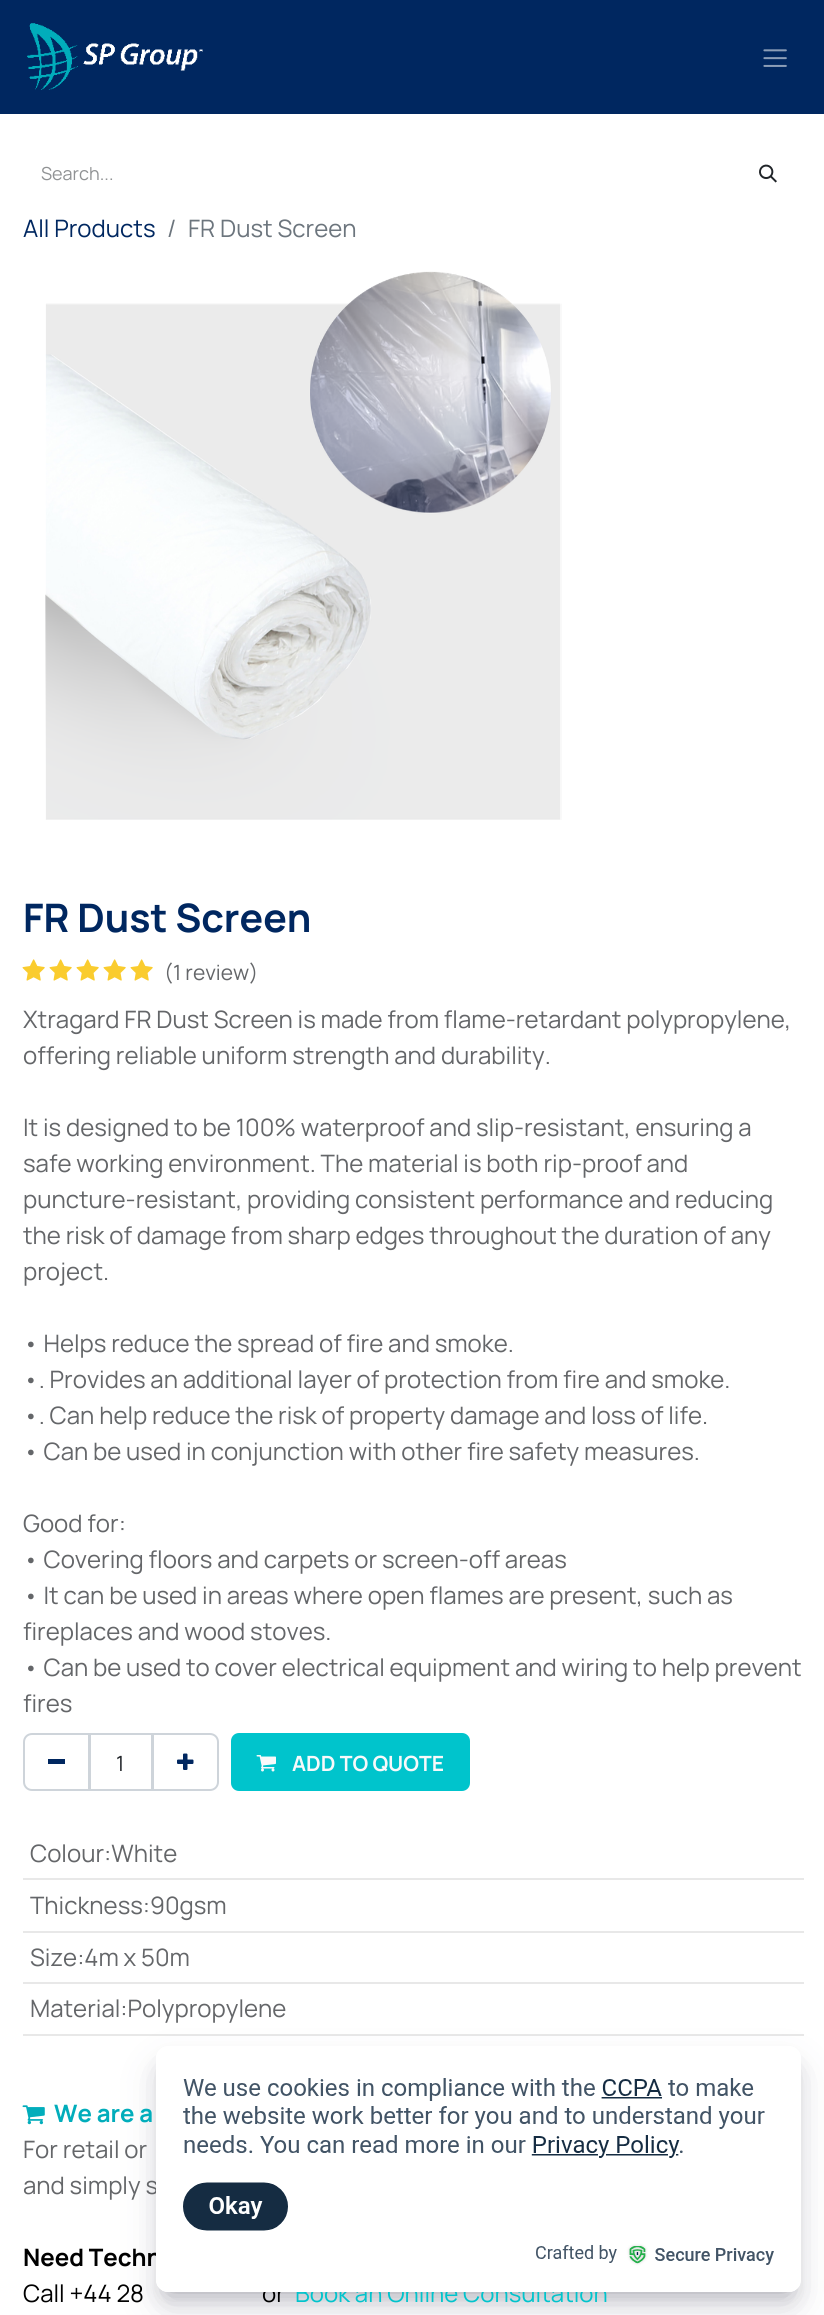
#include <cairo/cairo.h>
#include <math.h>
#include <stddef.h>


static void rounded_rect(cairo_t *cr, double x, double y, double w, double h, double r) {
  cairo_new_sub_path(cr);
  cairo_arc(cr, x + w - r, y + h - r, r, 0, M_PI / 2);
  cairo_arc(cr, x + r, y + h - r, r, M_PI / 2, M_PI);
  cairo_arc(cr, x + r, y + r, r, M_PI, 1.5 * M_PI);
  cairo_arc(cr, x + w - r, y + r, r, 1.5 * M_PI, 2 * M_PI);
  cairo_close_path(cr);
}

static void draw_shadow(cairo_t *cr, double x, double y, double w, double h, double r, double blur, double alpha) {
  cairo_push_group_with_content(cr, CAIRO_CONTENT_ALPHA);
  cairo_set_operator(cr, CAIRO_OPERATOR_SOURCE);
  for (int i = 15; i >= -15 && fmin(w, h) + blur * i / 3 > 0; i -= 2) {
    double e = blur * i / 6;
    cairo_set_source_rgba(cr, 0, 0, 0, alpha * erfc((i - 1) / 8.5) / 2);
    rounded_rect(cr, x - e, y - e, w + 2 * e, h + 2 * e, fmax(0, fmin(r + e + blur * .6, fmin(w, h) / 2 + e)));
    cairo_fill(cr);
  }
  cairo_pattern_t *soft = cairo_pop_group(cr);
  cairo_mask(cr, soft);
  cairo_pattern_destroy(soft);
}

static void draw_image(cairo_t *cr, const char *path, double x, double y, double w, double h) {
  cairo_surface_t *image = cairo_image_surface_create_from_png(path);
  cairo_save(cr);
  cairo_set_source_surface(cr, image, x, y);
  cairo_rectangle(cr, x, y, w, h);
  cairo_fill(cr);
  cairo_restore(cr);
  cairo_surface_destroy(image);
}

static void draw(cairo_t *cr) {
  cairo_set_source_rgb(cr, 1, 1, 1);
  cairo_paint(cr);
  cairo_set_source_rgb(cr, 0, 39 / 255.0, 96 / 255.0);
  cairo_rectangle(cr, 0, 0, 824, 114);
  cairo_fill(cr);
  draw_image(cr, "images/1.png", 27, 23, 176, 67);
  draw_image(cr, "images/2.png", 763, 49, 24, 18);
  draw_image(cr, "images/3.png", 759, 164, 18, 19);
  draw_image(cr, "images/4.png", 45, 271, 517, 549);
  draw_image(cr, "images/5.png", 22, 959, 23, 22);
  draw_image(cr, "images/5.png", 49, 959, 23, 22);
  draw_image(cr, "images/5.png", 76, 959, 23, 22);
  draw_image(cr, "images/5.png", 103, 959, 23, 22);
  draw_image(cr, "images/5.png", 130, 959, 23, 22);
  cairo_rectangle(cr, 90, 1734, 62, 56);
  cairo_set_source_rgb(cr, 206 / 255.0, 212 / 255.0, 218 / 255.0);
  cairo_stroke(cr);
  cairo_new_path(cr);
  cairo_move_to(cr, 32, 1734);
  cairo_line_to(cr, 89, 1734);
  cairo_line_to(cr, 89, 1790);
  cairo_line_to(cr, 32, 1790);
  cairo_curve_to(cr, 27.5, 1790, 24, 1786.5, 24, 1782);
  cairo_line_to(cr, 24, 1742);
  cairo_curve_to(cr, 24, 1737.5, 27.5, 1734, 32, 1734);
  cairo_close_path(cr);
  cairo_stroke(cr);
  cairo_set_source_rgb(cr, 0, 39 / 255.0, 96 / 255.0);
  cairo_rectangle(cr, 48, 1759, 17, 5);
  cairo_fill(cr);
  cairo_new_path(cr);
  cairo_move_to(cr, 153, 1734);
  cairo_line_to(cr, 210, 1734);
  cairo_curve_to(cr, 214.5, 1734, 218, 1737.5, 218, 1742);
  cairo_line_to(cr, 218, 1782);
  cairo_curve_to(cr, 218, 1786.5, 214.5, 1790, 210, 1790);
  cairo_line_to(cr, 153, 1790);
  cairo_close_path(cr);
  cairo_set_source_rgb(cr, 206 / 255.0, 212 / 255.0, 218 / 255.0);
  cairo_stroke(cr);
  draw_image(cr, "images/6.png", 177, 1753, 17, 17);
  cairo_set_source_rgb(cr, 0, 196 / 255.0, 204 / 255.0);
  rounded_rect(cr, 232, 1734, 237, 56, 7);
  cairo_fill_preserve(cr);
  cairo_stroke(cr);
  draw_image(cr, "images/7.png", 256, 1755, 20, 17);
  cairo_set_source_rgb(cr, 232 / 255.0, 232 / 255.0, 232 / 255.0);
  cairo_rectangle(cr, 23, 1878, 781, 2);
  cairo_fill(cr);
  cairo_rectangle(cr, 23, 1931, 781, 2);
  cairo_fill(cr);
  cairo_rectangle(cr, 23, 1982, 781, 2);
  cairo_fill(cr);
  cairo_rectangle(cr, 23, 2034, 781, 2);
  cairo_fill(cr);
  draw_image(cr, "images/8.png", 22, 2105, 23, 20);
  cairo_save(cr);
  cairo_set_fill_rule(cr, CAIRO_FILL_RULE_EVEN_ODD);
  cairo_new_path(cr);
  cairo_move_to(cr, 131, 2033);
  cairo_line_to(cr, 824, 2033);
  cairo_line_to(cr, 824, 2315);
  cairo_line_to(cr, 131, 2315);
  cairo_close_path(cr);
  cairo_move_to(cr, 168, 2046);
  cairo_line_to(cr, 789, 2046);
  cairo_curve_to(cr, 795.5, 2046, 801, 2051.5, 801, 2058);
  cairo_line_to(cr, 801, 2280);
  cairo_curve_to(cr, 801, 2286.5, 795.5, 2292, 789, 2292);
  cairo_line_to(cr, 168, 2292);
  cairo_curve_to(cr, 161.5, 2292, 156, 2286.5, 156, 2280);
  cairo_line_to(cr, 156, 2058);
  cairo_curve_to(cr, 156, 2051.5, 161.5, 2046, 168, 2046);
  cairo_close_path(cr);
  cairo_clip(cr);
  cairo_set_source_rgb(cr, 0, 0, 0);
  draw_shadow(cr, 168, 2070, 621, 222, 0, 12, 0.25);
  cairo_restore(cr);
  cairo_save(cr);
  cairo_set_fill_rule(cr, CAIRO_FILL_RULE_EVEN_ODD);
  cairo_new_path(cr);
  cairo_move_to(cr, 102, 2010);
  cairo_line_to(cr, 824, 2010);
  cairo_line_to(cr, 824, 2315);
  cairo_line_to(cr, 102, 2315);
  cairo_close_path(cr);
  cairo_move_to(cr, 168, 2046);
  cairo_line_to(cr, 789, 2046);
  cairo_curve_to(cr, 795.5, 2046, 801, 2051.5, 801, 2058);
  cairo_line_to(cr, 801, 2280);
  cairo_curve_to(cr, 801, 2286.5, 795.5, 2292, 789, 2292);
  cairo_line_to(cr, 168, 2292);
  cairo_curve_to(cr, 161.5, 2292, 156, 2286.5, 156, 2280);
  cairo_line_to(cr, 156, 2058);
  cairo_curve_to(cr, 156, 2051.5, 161.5, 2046, 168, 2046);
  cairo_close_path(cr);
  cairo_clip(cr);
  cairo_set_source_rgb(cr, 50 / 255.0, 50 / 255.0, 90 / 255.0);
  draw_shadow(cr, 162, 2070, 633, 234, 6, 19.5, 0.2);
  cairo_restore(cr);
  cairo_select_font_face(cr, "Manrope", CAIRO_FONT_SLANT_NORMAL, CAIRO_FONT_WEIGHT_NORMAL);
  cairo_set_font_size(cr, 18);
  cairo_set_source_rgb(cr, 144 / 255.0, 146 / 255.0, 148 / 255.0);
  cairo_move_to(cr, 41, 180);
  cairo_show_text(cr, "Search...");
  cairo_set_font_size(cr, 24);
  cairo_set_source_rgb(cr, 0, 39 / 255.0, 96 / 255.0);
  cairo_move_to(cr, 23, 237);
  cairo_show_text(cr, "All Products");
  cairo_set_source_rgb(cr, 108 / 255.0, 117 / 255.0, 125 / 255.0);
  cairo_move_to(cr, 167, 237);
  cairo_show_text(cr, "/");
  cairo_move_to(cr, 188, 237);
  cairo_show_text(cr, "FR Dust Screen");
  cairo_select_font_face(cr, "Manrope", CAIRO_FONT_SLANT_NORMAL, CAIRO_FONT_WEIGHT_BOLD);
  cairo_set_font_size(cr, 39.25);
  cairo_set_source_rgb(cr, 0, 39 / 255.0, 96 / 255.0);
  cairo_move_to(cr, 23, 932);
  cairo_show_text(cr, "FR Dust Screen");
  cairo_select_font_face(cr, "Manrope", CAIRO_FONT_SLANT_NORMAL, CAIRO_FONT_WEIGHT_NORMAL);
  cairo_set_font_size(cr, 21);
  cairo_set_source_rgb(cr, 100 / 255.0, 102 / 255.0, 105 / 255.0);
  cairo_move_to(cr, 164, 980);
  cairo_show_text(cr, "(1 review)");
  cairo_set_font_size(cr, 24);
  cairo_move_to(cr, 23, 1028);
  cairo_show_text(cr, "Xtragard FR Dust Screen is made from flame-retardant polypropylene,");
  cairo_move_to(cr, 23, 1064);
  cairo_show_text(cr, "offering reliable uniform strength and durability.");
  cairo_move_to(cr, 23, 1136);
  cairo_show_text(cr, "It is designed to be 100% waterproof and slip-resistant, ensuring a");
  cairo_move_to(cr, 23, 1172);
  cairo_show_text(cr, "safe working environment. The material is both rip-proof and");
  cairo_move_to(cr, 23, 1208);
  cairo_show_text(cr, "puncture-resistant, providing consistent performance and reducing");
  cairo_move_to(cr, 23, 1244);
  cairo_show_text(cr, "the risk of damage from sharp edges throughout the duration of any");
  cairo_move_to(cr, 23, 1280);
  cairo_show_text(cr, "project.");
  cairo_move_to(cr, 23, 1352);
  cairo_show_text(cr, "• Helps reduce the spread of fire and smoke.");
  cairo_move_to(cr, 23, 1388);
  cairo_show_text(cr, "•. Provides an additional layer of protection from fire and smoke.");
  cairo_move_to(cr, 23, 1424);
  cairo_show_text(cr, "•. Can help reduce the risk of property damage and loss of life.");
  cairo_move_to(cr, 23, 1460);
  cairo_show_text(cr, "• Can be used in conjunction with other fire safety measures.");
  cairo_move_to(cr, 23, 1532);
  cairo_show_text(cr, "Good for:");
  cairo_move_to(cr, 23, 1568);
  cairo_show_text(cr, "• Covering floors and carpets or screen-off areas");
  cairo_move_to(cr, 23, 1604);
  cairo_show_text(cr, "• It can be used in areas where open flames are present, such as");
  cairo_move_to(cr, 23, 1640);
  cairo_show_text(cr, "fireplaces and wood stoves.");
  cairo_move_to(cr, 23, 1676);
  cairo_show_text(cr, "• Can be used to cover electrical equipment and wiring to help prevent");
  cairo_move_to(cr, 23, 1712);
  cairo_show_text(cr, "fires");
  cairo_set_font_size(cr, 21);
  cairo_set_source_rgb(cr, 33 / 255.0, 37 / 255.0, 41 / 255.0);
  cairo_move_to(cr, 116, 1771);
  cairo_show_text(cr, "1");
  cairo_select_font_face(cr, "Manrope", CAIRO_FONT_SLANT_NORMAL, CAIRO_FONT_WEIGHT_BOLD);
  cairo_set_source_rgb(cr, 248 / 255.0, 249 / 255.0, 250 / 255.0);
  cairo_move_to(cr, 292, 1771);
  cairo_show_text(cr, "ADD TO QUOTE");
  cairo_select_font_face(cr, "Manrope", CAIRO_FONT_SLANT_NORMAL, CAIRO_FONT_WEIGHT_NORMAL);
  cairo_set_font_size(cr, 24);
  cairo_set_source_rgb(cr, 100 / 255.0, 102 / 255.0, 105 / 255.0);
  cairo_move_to(cr, 30, 1862);
  cairo_show_text(cr, "Colour:White");
  cairo_move_to(cr, 30, 1914);
  cairo_show_text(cr, "Thickness:90gsm");
  cairo_move_to(cr, 30, 1966);
  cairo_show_text(cr, "Size:4m x 50m");
  cairo_move_to(cr, 30, 2017);
  cairo_show_text(cr, "Material:Polypropylene");
  cairo_select_font_face(cr, "Manrope", CAIRO_FONT_SLANT_NORMAL, CAIRO_FONT_WEIGHT_BOLD);
  cairo_set_source_rgb(cr, 1 / 255.0, 173 / 255.0, 187 / 255.0);
  cairo_move_to(cr, 54, 2122);
  cairo_show_text(cr, "We are a");
  cairo_select_font_face(cr, "Manrope", CAIRO_FONT_SLANT_NORMAL, CAIRO_FONT_WEIGHT_NORMAL);
  cairo_set_source_rgb(cr, 100 / 255.0, 102 / 255.0, 105 / 255.0);
  cairo_move_to(cr, 23, 2158);
  cairo_show_text(cr, "For retail or");
  cairo_move_to(cr, 23, 2194);
  cairo_show_text(cr, "and simply s");
  cairo_select_font_face(cr, "Manrope", CAIRO_FONT_SLANT_NORMAL, CAIRO_FONT_WEIGHT_BOLD);
  cairo_set_source_rgb(cr, 0, 0, 0);
  cairo_move_to(cr, 23, 2266);
  cairo_show_text(cr, "Need Techn");
  cairo_select_font_face(cr, "Manrope", CAIRO_FONT_SLANT_NORMAL, CAIRO_FONT_WEIGHT_NORMAL);
  cairo_move_to(cr, 23, 2302);
  cairo_show_text(cr, "Call +44 28");
  cairo_move_to(cr, 262, 2302);
  cairo_show_text(cr, "or");
  cairo_set_source_rgb(cr, 0, 196 / 255.0, 204 / 255.0);
  cairo_move_to(cr, 295, 2302);
  cairo_show_text(cr, "Book an Online Consultation");
  draw_image(cr, "images/9.png", 156, 2078, 644, 214);
}

int main(void) {
  cairo_surface_t *surface = cairo_image_surface_create(CAIRO_FORMAT_RGB24, 824, 2315);
  cairo_t *cr = cairo_create(surface);
  cairo_font_options_t *options = cairo_font_options_create();
  cairo_font_options_set_hint_metrics(options, CAIRO_HINT_METRICS_OFF);
  cairo_font_options_set_hint_style(options, CAIRO_HINT_STYLE_NONE);
  cairo_set_font_options(cr, options);
  cairo_set_miter_limit(cr, 4);
  draw(cr);
  cairo_surface_write_to_png(surface, "out.png");
  cairo_font_options_destroy(options);
  cairo_destroy(cr);
  cairo_surface_destroy(surface);
  return 0;
}
